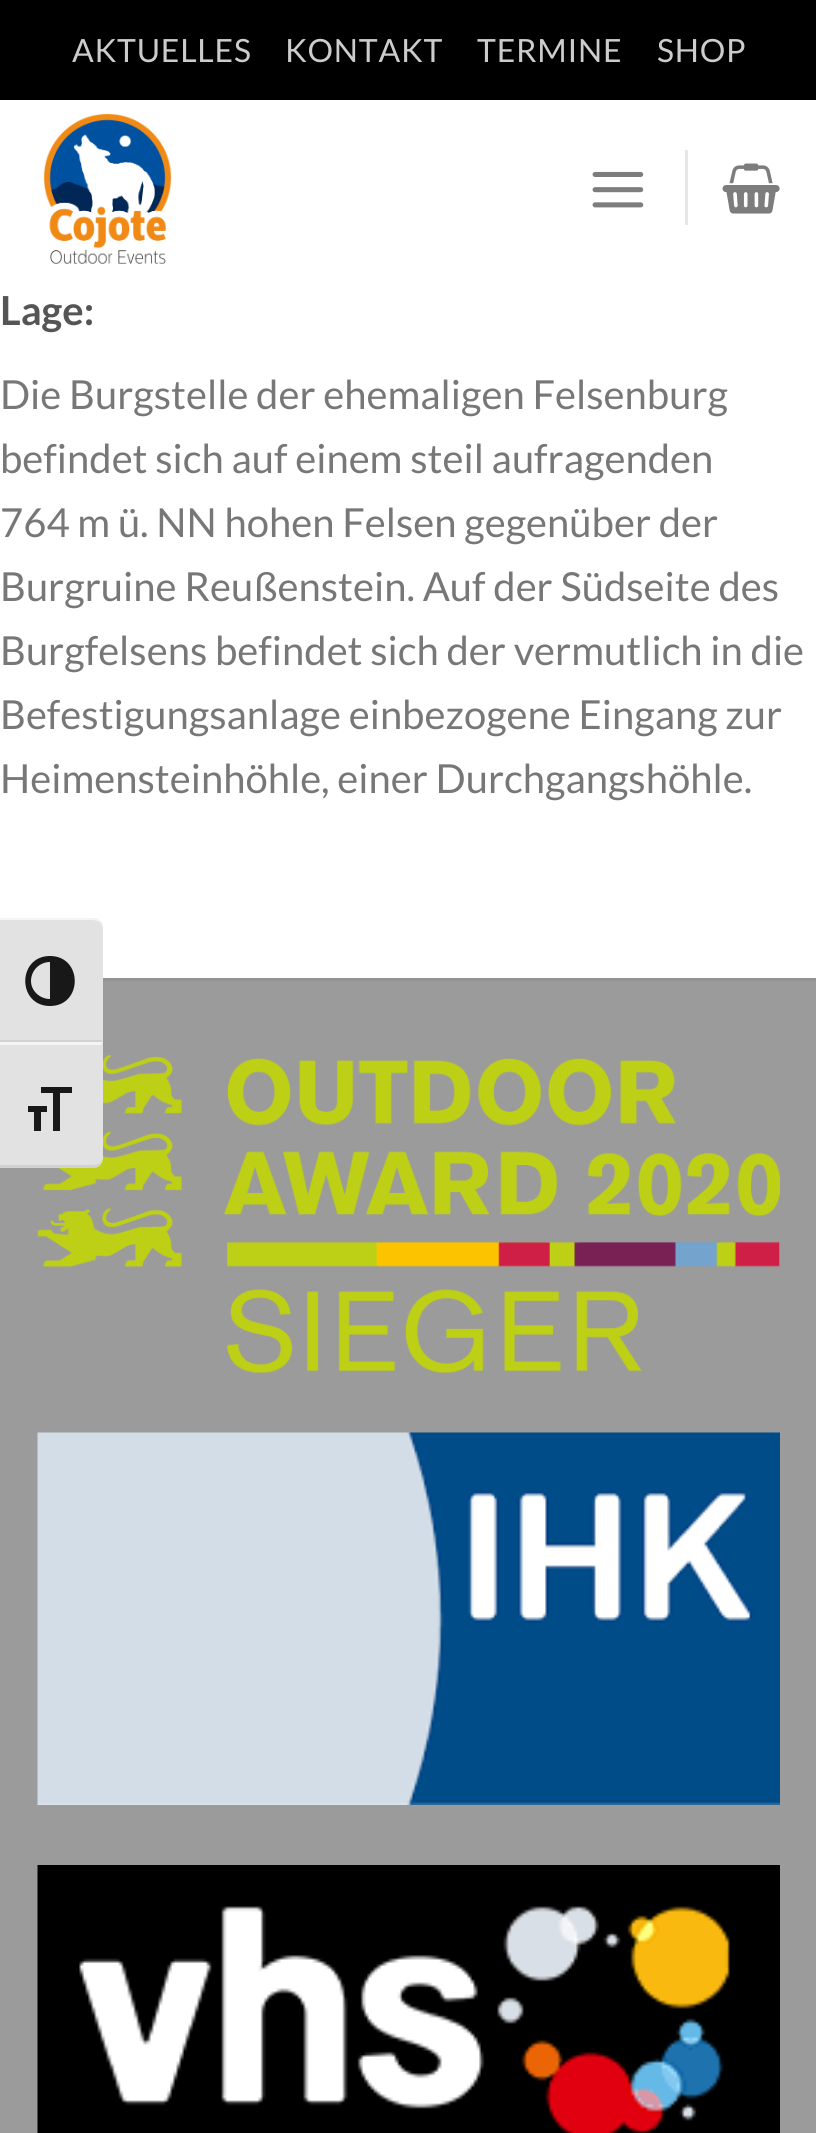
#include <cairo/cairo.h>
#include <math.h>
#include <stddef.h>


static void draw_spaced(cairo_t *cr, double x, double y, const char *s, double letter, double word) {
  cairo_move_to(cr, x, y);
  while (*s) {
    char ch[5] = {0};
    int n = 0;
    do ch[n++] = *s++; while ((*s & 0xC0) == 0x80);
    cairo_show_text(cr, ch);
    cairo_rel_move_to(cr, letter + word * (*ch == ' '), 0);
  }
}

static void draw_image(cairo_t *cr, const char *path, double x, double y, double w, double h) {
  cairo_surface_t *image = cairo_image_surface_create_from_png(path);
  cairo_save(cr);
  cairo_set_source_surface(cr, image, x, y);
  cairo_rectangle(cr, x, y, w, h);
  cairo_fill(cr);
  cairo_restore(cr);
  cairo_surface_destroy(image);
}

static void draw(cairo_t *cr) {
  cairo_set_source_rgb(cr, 1, 1, 1);
  cairo_paint(cr);
  cairo_set_source_rgb(cr, 0, 0, 0);
  cairo_rectangle(cr, 0, 0, 816, 100);
  cairo_fill(cr);
  draw_image(cr, "images/1.png", 43, 113, 129, 151);
  draw_image(cr, "images/2.png", 592, 171, 52, 37);
  cairo_set_source_rgb(cr, 230 / 255.0, 230 / 255.0, 230 / 255.0);
  cairo_rectangle(cr, 685, 150, 3, 75);
  cairo_fill(cr);
  draw_image(cr, "images/3.png", 722, 163, 58, 51);
  cairo_set_source_rgb(cr, 155 / 255.0, 155 / 255.0, 155 / 255.0);
  cairo_rectangle(cr, 0, 981, 816, 1152);
  cairo_fill(cr);
  cairo_set_source_rgb(cr, 147 / 255.0, 147 / 255.0, 147 / 255.0);
  cairo_rectangle(cr, 103, 978, 713, 3);
  cairo_fill(cr);
  draw_image(cr, "images/4.png", 37, 1055, 743, 318);
  draw_image(cr, "images/5.png", 37, 1432, 743, 373);
  draw_image(cr, "images/6.png", 37, 1865, 743, 268);
  cairo_set_source_rgb(cr, 226 / 255.0, 226 / 255.0, 226 / 255.0);
  cairo_new_path(cr);
  cairo_move_to(cr, 0, 918);
  cairo_line_to(cr, 93, 918);
  cairo_curve_to(cr, 98.5, 918, 103, 922.5, 103, 928);
  cairo_line_to(cr, 103, 1043);
  cairo_line_to(cr, 0, 1043);
  cairo_close_path(cr);
  cairo_fill(cr);
  cairo_set_source_rgb(cr, 245 / 255.0, 245 / 255.0, 245 / 255.0);
  cairo_new_path(cr);
  cairo_move_to(cr, 0, 920);
  cairo_line_to(cr, 92, 920);
  cairo_curve_to(cr, 98, 920, 102, 923, 102, 928);
  cairo_curve_to(cr, 102, 922, 98, 918, 92, 918);
  cairo_line_to(cr, 0, 918);
  cairo_close_path(cr);
  cairo_fill(cr);
  cairo_set_source_rgb(cr, 210 / 255.0, 210 / 255.0, 210 / 255.0);
  cairo_rectangle(cr, 0, 1040, 102, 2);
  cairo_fill(cr);
  cairo_set_source_rgb(cr, 24 / 255.0, 24 / 255.0, 24 / 255.0);
  cairo_new_path(cr);
  cairo_move_to(cr, 50, 956);
  cairo_curve_to(cr, 17, 956, 17, 1006, 50, 1006);
  cairo_curve_to(cr, 83, 1006, 83, 956, 50, 956);
  cairo_close_path(cr);
  cairo_move_to(cr, 31, 981);
  cairo_curve_to(cr, 31, 970, 40, 962, 50, 962);
  cairo_line_to(cr, 50, 999);
  cairo_curve_to(cr, 40, 999, 31, 991, 31, 981);
  cairo_close_path(cr);
  cairo_fill(cr);
  cairo_set_source_rgb(cr, 226 / 255.0, 226 / 255.0, 226 / 255.0);
  cairo_new_path(cr);
  cairo_move_to(cr, 0, 1043);
  cairo_line_to(cr, 103, 1043);
  cairo_line_to(cr, 103, 1158);
  cairo_curve_to(cr, 103, 1163.5, 98.5, 1168, 93, 1168);
  cairo_line_to(cr, 0, 1168);
  cairo_close_path(cr);
  cairo_fill(cr);
  cairo_set_source_rgb(cr, 245 / 255.0, 245 / 255.0, 245 / 255.0);
  cairo_rectangle(cr, 0, 1042, 102, 3);
  cairo_fill(cr);
  cairo_set_source_rgb(cr, 210 / 255.0, 210 / 255.0, 210 / 255.0);
  cairo_new_path(cr);
  cairo_move_to(cr, 95, 1168);
  cairo_curve_to(cr, 99, 1166, 102, 1162, 102, 1158);
  cairo_curve_to(cr, 102, 1162, 98, 1165, 92, 1165);
  cairo_line_to(cr, 0, 1165);
  cairo_line_to(cr, 0, 1168);
  cairo_close_path(cr);
  cairo_fill(cr);
  cairo_set_source_rgb(cr, 24 / 255.0, 24 / 255.0, 24 / 255.0);
  cairo_new_path(cr);
  cairo_move_to(cr, 28, 1106);
  cairo_line_to(cr, 47, 1106);
  cairo_line_to(cr, 47, 1112);
  cairo_line_to(cr, 41, 1112);
  cairo_line_to(cr, 41, 1131);
  cairo_line_to(cr, 34, 1131);
  cairo_line_to(cr, 34, 1112);
  cairo_line_to(cr, 28, 1112);
  cairo_close_path(cr);
  cairo_move_to(cr, 72, 1093);
  cairo_line_to(cr, 60, 1093);
  cairo_line_to(cr, 60, 1131);
  cairo_line_to(cr, 53, 1131);
  cairo_line_to(cr, 53, 1093);
  cairo_line_to(cr, 41, 1093);
  cairo_line_to(cr, 41, 1087);
  cairo_line_to(cr, 72, 1087);
  cairo_close_path(cr);
  cairo_fill(cr);
  cairo_select_font_face(cr, "Lato", CAIRO_FONT_SLANT_NORMAL, CAIRO_FONT_WEIGHT_NORMAL);
  cairo_set_font_size(cr, 32);
  cairo_set_source_rgb(cr, 204 / 255.0, 204 / 255.0, 204 / 255.0);
  draw_spaced(cr, 72, 62, "AKTUELLES", 0.75, 0);
  draw_spaced(cr, 285, 62, "KONTAKT", 0.75, 0);
  draw_spaced(cr, 477, 62, "TERMINE", 0.75, 0);
  draw_spaced(cr, 657, 62, "SHOP", 0.75, 0);
  cairo_select_font_face(cr, "Lato", CAIRO_FONT_SLANT_NORMAL, CAIRO_FONT_WEIGHT_BOLD);
  cairo_set_font_size(cr, 40);
  cairo_set_source_rgb(cr, 85 / 255.0, 85 / 255.0, 85 / 255.0);
  cairo_move_to(cr, 0, 325);
  cairo_show_text(cr, "Lage:");
  cairo_select_font_face(cr, "Lato", CAIRO_FONT_SLANT_NORMAL, CAIRO_FONT_WEIGHT_NORMAL);
  cairo_set_source_rgb(cr, 119 / 255.0, 119 / 255.0, 119 / 255.0);
  cairo_move_to(cr, 0, 409);
  cairo_show_text(cr, "Die Burgstelle der ehemaligen Felsenburg");
  cairo_move_to(cr, 0, 473);
  cairo_show_text(cr, "befindet sich auf einem steil aufragenden");
  cairo_move_to(cr, 0, 537);
  cairo_show_text(cr, "764 m ü. NN hohen Felsen gegenüber der");
  cairo_move_to(cr, 0, 601);
  cairo_show_text(cr, "Burgruine Reußenstein. Auf der Südseite des");
  cairo_move_to(cr, 0, 665);
  cairo_show_text(cr, "Burgfelsens befindet sich der vermutlich in die");
  cairo_move_to(cr, 0, 729);
  cairo_show_text(cr, "Befestigungsanlage einbezogene Eingang zur");
  cairo_move_to(cr, 0, 793);
  cairo_show_text(cr, "Heimensteinhöhle, einer Durchgangshöhle.");
}

int main(void) {
  cairo_surface_t *surface = cairo_image_surface_create(CAIRO_FORMAT_RGB24, 816, 2133);
  cairo_t *cr = cairo_create(surface);
  cairo_font_options_t *options = cairo_font_options_create();
  cairo_font_options_set_hint_metrics(options, CAIRO_HINT_METRICS_OFF);
  cairo_font_options_set_hint_style(options, CAIRO_HINT_STYLE_NONE);
  cairo_set_font_options(cr, options);
  cairo_set_miter_limit(cr, 4);
  draw(cr);
  cairo_surface_write_to_png(surface, "out.png");
  cairo_font_options_destroy(options);
  cairo_destroy(cr);
  cairo_surface_destroy(surface);
  return 0;
}
